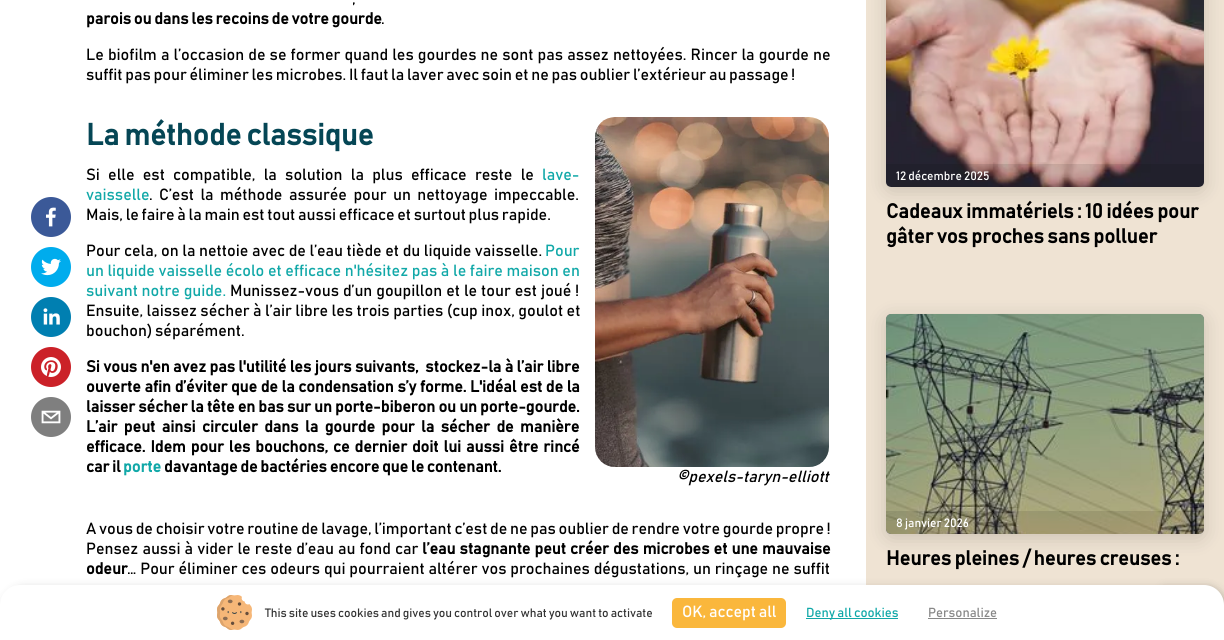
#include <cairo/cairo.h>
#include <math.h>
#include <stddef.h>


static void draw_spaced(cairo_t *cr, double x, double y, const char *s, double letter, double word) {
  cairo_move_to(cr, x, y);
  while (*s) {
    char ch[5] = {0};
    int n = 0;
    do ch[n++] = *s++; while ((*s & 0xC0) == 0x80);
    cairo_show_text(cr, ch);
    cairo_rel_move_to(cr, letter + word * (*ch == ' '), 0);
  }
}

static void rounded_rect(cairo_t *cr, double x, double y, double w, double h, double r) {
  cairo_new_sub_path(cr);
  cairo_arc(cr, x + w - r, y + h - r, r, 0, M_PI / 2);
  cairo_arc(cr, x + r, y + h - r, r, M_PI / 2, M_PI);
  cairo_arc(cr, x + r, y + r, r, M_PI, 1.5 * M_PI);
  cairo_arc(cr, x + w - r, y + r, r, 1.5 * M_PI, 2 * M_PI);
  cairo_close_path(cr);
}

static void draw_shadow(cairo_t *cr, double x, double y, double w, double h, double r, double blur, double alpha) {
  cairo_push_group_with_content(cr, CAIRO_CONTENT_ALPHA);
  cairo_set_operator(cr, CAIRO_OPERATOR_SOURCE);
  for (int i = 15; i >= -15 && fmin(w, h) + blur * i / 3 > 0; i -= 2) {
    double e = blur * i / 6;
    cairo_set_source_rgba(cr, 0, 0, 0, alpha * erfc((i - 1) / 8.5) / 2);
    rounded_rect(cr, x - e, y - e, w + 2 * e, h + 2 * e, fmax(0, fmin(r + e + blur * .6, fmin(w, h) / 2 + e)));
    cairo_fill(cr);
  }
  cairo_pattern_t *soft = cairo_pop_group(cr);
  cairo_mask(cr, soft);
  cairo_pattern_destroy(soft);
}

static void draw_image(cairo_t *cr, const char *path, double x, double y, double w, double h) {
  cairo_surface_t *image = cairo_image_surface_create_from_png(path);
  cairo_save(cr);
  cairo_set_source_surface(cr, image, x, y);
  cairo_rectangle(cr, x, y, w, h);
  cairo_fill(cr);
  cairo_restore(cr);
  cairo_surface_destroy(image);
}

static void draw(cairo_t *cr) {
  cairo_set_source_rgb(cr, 1, 1, 1);
  cairo_paint(cr);
  draw_image(cr, "images/1.png", 31, 197, 40, 40);
  draw_image(cr, "images/2.png", 31, 247, 40, 40);
  draw_image(cr, "images/3.png", 31, 297, 40, 40);
  draw_image(cr, "images/4.png", 31, 347, 40, 40);
  draw_image(cr, "images/5.png", 31, 397, 40, 40);
  draw_image(cr, "images/6.png", 595, 117, 234, 350);
  cairo_set_source_rgb(cr, 239 / 255.0, 227 / 255.0, 211 / 255.0);
  cairo_rectangle(cr, 866, 0, 358, 605);
  cairo_fill(cr);
  cairo_set_source_rgb(cr, 0, 0, 0);
  draw_shadow(cr, 886, -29, 318, 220, 5, 10, 0.15);
  cairo_set_source_rgb(cr, 128 / 255.0, 128 / 255.0, 128 / 255.0);
  rounded_rect(cr, 886, -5, 318, 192, 5);
  cairo_fill(cr);
  draw_image(cr, "images/7.png", 886, 0, 318, 187);
  cairo_set_source_rgba(cr, 0, 0, 0, 0.1);
  cairo_new_path(cr);
  cairo_move_to(cr, 886, 164);
  cairo_line_to(cr, 1204, 164);
  cairo_line_to(cr, 1204, 182);
  cairo_curve_to(cr, 1204, 185, 1202, 187, 1199, 187);
  cairo_line_to(cr, 891, 187);
  cairo_curve_to(cr, 888, 187, 886, 185, 886, 182);
  cairo_close_path(cr);
  cairo_fill(cr);
  cairo_set_source_rgb(cr, 0, 0, 0);
  draw_shadow(cr, 886, 318, 318, 220, 5, 10, 0.15);
  cairo_set_source_rgb(cr, 128 / 255.0, 128 / 255.0, 128 / 255.0);
  rounded_rect(cr, 886, 314, 318, 220, 5);
  cairo_fill(cr);
  draw_image(cr, "images/8.png", 886, 314, 318, 220);
  cairo_set_source_rgba(cr, 0, 0, 0, 0.1);
  cairo_new_path(cr);
  cairo_move_to(cr, 886, 511);
  cairo_line_to(cr, 1204, 511);
  cairo_line_to(cr, 1204, 529);
  cairo_curve_to(cr, 1204, 532, 1202, 534, 1199, 534);
  cairo_line_to(cr, 891, 534);
  cairo_curve_to(cr, 888, 534, 886, 532, 886, 529);
  cairo_close_path(cr);
  cairo_fill(cr);
  cairo_set_source_rgb(cr, 0, 0, 0);
  draw_shadow(cr, 4, 589, 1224, 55, 20, 5, 0.25);
  draw_shadow(cr, 1162, 589, 50, 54, 3, 5, 0.2);
  cairo_set_source_rgb(cr, 1, 1, 1);
  cairo_new_path(cr);
  cairo_move_to(cr, 20, 585);
  cairo_line_to(cr, 1204, 585);
  cairo_curve_to(cr, 1215, 585, 1224, 594, 1224, 605);
  cairo_line_to(cr, 1224, 640);
  cairo_line_to(cr, 0, 640);
  cairo_line_to(cr, 0, 605);
  cairo_curve_to(cr, 0, 594, 9, 585, 20, 585);
  cairo_close_path(cr);
  cairo_fill(cr);
  draw_image(cr, "images/9.png", 217, 595, 35, 35);
  cairo_set_source_rgb(cr, 250 / 255.0, 183 / 255.0, 60 / 255.0);
  rounded_rect(cr, 672, 598, 114, 30, 5);
  cairo_fill(cr);
  cairo_set_source_rgb(cr, 17 / 255.0, 168 / 255.0, 168 / 255.0);
  cairo_rectangle(cr, 806, 618, 92, 1);
  cairo_fill(cr);
  cairo_set_source_rgb(cr, 136 / 255.0, 136 / 255.0, 136 / 255.0);
  cairo_rectangle(cr, 928, 618, 69, 1);
  cairo_fill(cr);
  cairo_select_font_face(cr, "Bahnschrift", CAIRO_FONT_SLANT_NORMAL, CAIRO_FONT_WEIGHT_NORMAL);
  cairo_set_font_size(cr, 16);
  cairo_set_source_rgb(cr, 0, 0, 0);
  cairo_move_to(cr, 352, 4);
  cairo_show_text(cr, ",");
  cairo_select_font_face(cr, "Bahnschrift", CAIRO_FONT_SLANT_NORMAL, CAIRO_FONT_WEIGHT_BOLD);
  cairo_move_to(cr, 86, 24);
  cairo_show_text(cr, "parois ou dans les recoins de votre gourde");
  cairo_select_font_face(cr, "Bahnschrift", CAIRO_FONT_SLANT_NORMAL, CAIRO_FONT_WEIGHT_NORMAL);
  cairo_move_to(cr, 381, 24);
  cairo_show_text(cr, ".");
  draw_spaced(cr, 86, 60, "Le biofilm a l’occasion de se former quand les gourdes ne sont pas assez nettoyées. Rincer la gourde ne", 0, 1.4);
  cairo_move_to(cr, 86, 80);
  cairo_show_text(cr, "suffit pas pour éliminer les microbes. Il faut la laver avec soin et ne pas oublier l’extérieur au passage !");
  cairo_select_font_face(cr, "Bahnschrift", CAIRO_FONT_SLANT_NORMAL, CAIRO_FONT_WEIGHT_BOLD);
  cairo_set_font_size(cr, 30);
  cairo_set_source_rgb(cr, 5 / 255.0, 70 / 255.0, 85 / 255.0);
  cairo_move_to(cr, 86, 145);
  cairo_show_text(cr, "La méthode classique");
  cairo_select_font_face(cr, "Bahnschrift", CAIRO_FONT_SLANT_NORMAL, CAIRO_FONT_WEIGHT_NORMAL);
  cairo_set_font_size(cr, 16);
  cairo_set_source_rgb(cr, 0, 0, 0);
  draw_spaced(cr, 86, 180, "Si elle est compatible, la solution la plus efficace reste le", 0, 5.5);
  cairo_set_source_rgb(cr, 17 / 255.0, 168 / 255.0, 168 / 255.0);
  cairo_move_to(cr, 542, 180);
  cairo_show_text(cr, "lave-");
  cairo_move_to(cr, 86, 200);
  cairo_show_text(cr, "vaisselle");
  cairo_set_source_rgb(cr, 0, 0, 0);
  draw_spaced(cr, 149, 200, ". C’est la méthode assurée pour un nettoyage impeccable.", 0, 3.75);
  cairo_move_to(cr, 86, 220);
  cairo_show_text(cr, "Mais, le faire à la main est tout aussi efficace et surtout plus rapide.");
  draw_spaced(cr, 86, 256, "Pour cela, on la nettoie avec de l’eau tiède et du liquide vaisselle.", 0, 0.9);
  cairo_set_source_rgb(cr, 17 / 255.0, 168 / 255.0, 168 / 255.0);
  cairo_move_to(cr, 545, 256);
  cairo_show_text(cr, "Pour");
  draw_spaced(cr, 86, 276, "un liquide vaisselle écolo et efficace n'hésitez pas à le faire maison en", 0, 0.9);
  draw_spaced(cr, 86, 296, "suivant notre guide.", 0, 1);
  cairo_set_source_rgb(cr, 0, 0, 0);
  draw_spaced(cr, 230, 296, "Munissez-vous d’un goupillon et le tour est joué !", 0, 1.25);
  draw_spaced(cr, 86, 316, "Ensuite, laissez sécher à l’air libre les trois parties (cup inox, goulot et", 0, 0.75);
  cairo_move_to(cr, 86, 336);
  cairo_show_text(cr, "bouchon) séparément.");
  cairo_select_font_face(cr, "Bahnschrift", CAIRO_FONT_SLANT_NORMAL, CAIRO_FONT_WEIGHT_BOLD);
  draw_spaced(cr, 86, 372, "Si vous n'en avez pas l'utilité les jours suivants,  stockez-la à l’air libre", 0, 0.6);
  draw_spaced(cr, 86, 392, "ouverte afin d’éviter que de la condensation s’y forme. L'idéal est de la", 0, 0.9);
  draw_spaced(cr, 86, 412, "laisser sécher la tête en bas sur un porte-biberon ou un porte-gourde.", 0, 0.4);
  draw_spaced(cr, 86, 432, "L’air peut ainsi circuler dans la gourde pour la sécher de manière", 0, 3.75);
  draw_spaced(cr, 86, 452, "efficace. Idem pour les bouchons, ce dernier doit lui aussi être rincé", 0, 2.25);
  cairo_move_to(cr, 86, 472);
  cairo_show_text(cr, "car il");
  cairo_set_source_rgb(cr, 17 / 255.0, 168 / 255.0, 168 / 255.0);
  cairo_move_to(cr, 123, 472);
  cairo_show_text(cr, "porte");
  cairo_set_source_rgb(cr, 0, 0, 0);
  cairo_move_to(cr, 164, 472);
  cairo_show_text(cr, "davantage de bactéries encore que le contenant.");
  cairo_select_font_face(cr, "Bahnschrift", CAIRO_FONT_SLANT_ITALIC, CAIRO_FONT_WEIGHT_NORMAL);
  cairo_move_to(cr, 677, 482);
  cairo_show_text(cr, "©pexels-taryn-elliott");
  cairo_select_font_face(cr, "Bahnschrift", CAIRO_FONT_SLANT_NORMAL, CAIRO_FONT_WEIGHT_NORMAL);
  cairo_move_to(cr, 86, 534);
  cairo_show_text(cr, "A vous de choisir votre routine de lavage, l’important c’est de ne pas oublier de rendre votre gourde propre !");
  draw_spaced(cr, 86, 554, "Pensez aussi à vider le reste d’eau au fond car", 0, 1.4);
  cairo_select_font_face(cr, "Bahnschrift", CAIRO_FONT_SLANT_NORMAL, CAIRO_FONT_WEIGHT_BOLD);
  draw_spaced(cr, 422, 554, "l’eau stagnante peut créer des microbes et une mauvaise", 0, 1.4);
  cairo_move_to(cr, 86, 574);
  cairo_show_text(cr, "odeur");
  cairo_select_font_face(cr, "Bahnschrift", CAIRO_FONT_SLANT_NORMAL, CAIRO_FONT_WEIGHT_NORMAL);
  draw_spaced(cr, 127, 574, "… Pour éliminer ces odeurs qui pourraient altérer vos prochaines dégustations, un rinçage ne suffit", 0, 1.1);
  cairo_set_font_size(cr, 12);
  cairo_set_source_rgb(cr, 1, 1, 1);
  cairo_move_to(cr, 896, 180);
  cairo_show_text(cr, "12 décembre 2025");
  cairo_select_font_face(cr, "Bahnschrift", CAIRO_FONT_SLANT_NORMAL, CAIRO_FONT_WEIGHT_BOLD);
  cairo_set_font_size(cr, 20);
  cairo_set_source_rgb(cr, 0, 0, 0);
  cairo_move_to(cr, 886, 218);
  cairo_show_text(cr, "Cadeaux immatériels : 10 idées pour");
  cairo_move_to(cr, 886, 243);
  cairo_show_text(cr, "gâter vos proches sans polluer");
  cairo_select_font_face(cr, "Bahnschrift", CAIRO_FONT_SLANT_NORMAL, CAIRO_FONT_WEIGHT_NORMAL);
  cairo_set_font_size(cr, 12);
  cairo_set_source_rgb(cr, 1, 1, 1);
  cairo_move_to(cr, 896, 527);
  cairo_show_text(cr, "8 janvier 2026");
  cairo_select_font_face(cr, "Bahnschrift", CAIRO_FONT_SLANT_NORMAL, CAIRO_FONT_WEIGHT_BOLD);
  cairo_set_font_size(cr, 20);
  cairo_set_source_rgb(cr, 0, 0, 0);
  cairo_move_to(cr, 886, 565);
  cairo_show_text(cr, "Heures pleines / heures creuses :");
  cairo_select_font_face(cr, "Bahnschrift", CAIRO_FONT_SLANT_NORMAL, CAIRO_FONT_WEIGHT_NORMAL);
  cairo_set_font_size(cr, 12);
  cairo_set_source_rgb(cr, 51 / 255.0, 51 / 255.0, 51 / 255.0);
  cairo_move_to(cr, 265, 617);
  cairo_show_text(cr, "This site uses cookies and gives you control over what you want to activate");
  cairo_set_font_size(cr, 16);
  cairo_set_source_rgb(cr, 1, 1, 1);
  cairo_move_to(cr, 682, 617);
  cairo_show_text(cr, "OK, accept all");
  cairo_set_font_size(cr, 13);
  cairo_set_source_rgb(cr, 17 / 255.0, 168 / 255.0, 168 / 255.0);
  cairo_move_to(cr, 806, 617);
  cairo_show_text(cr, "Deny all cookies");
  cairo_set_source_rgb(cr, 136 / 255.0, 136 / 255.0, 136 / 255.0);
  cairo_move_to(cr, 928, 617);
  cairo_show_text(cr, "Personalize");
}

int main(void) {
  cairo_surface_t *surface = cairo_image_surface_create(CAIRO_FORMAT_RGB24, 1224, 640);
  cairo_t *cr = cairo_create(surface);
  cairo_font_options_t *options = cairo_font_options_create();
  cairo_font_options_set_hint_metrics(options, CAIRO_HINT_METRICS_OFF);
  cairo_font_options_set_hint_style(options, CAIRO_HINT_STYLE_NONE);
  cairo_set_font_options(cr, options);
  cairo_set_miter_limit(cr, 4);
  draw(cr);
  cairo_surface_write_to_png(surface, "out.png");
  cairo_font_options_destroy(options);
  cairo_destroy(cr);
  cairo_surface_destroy(surface);
  return 0;
}
